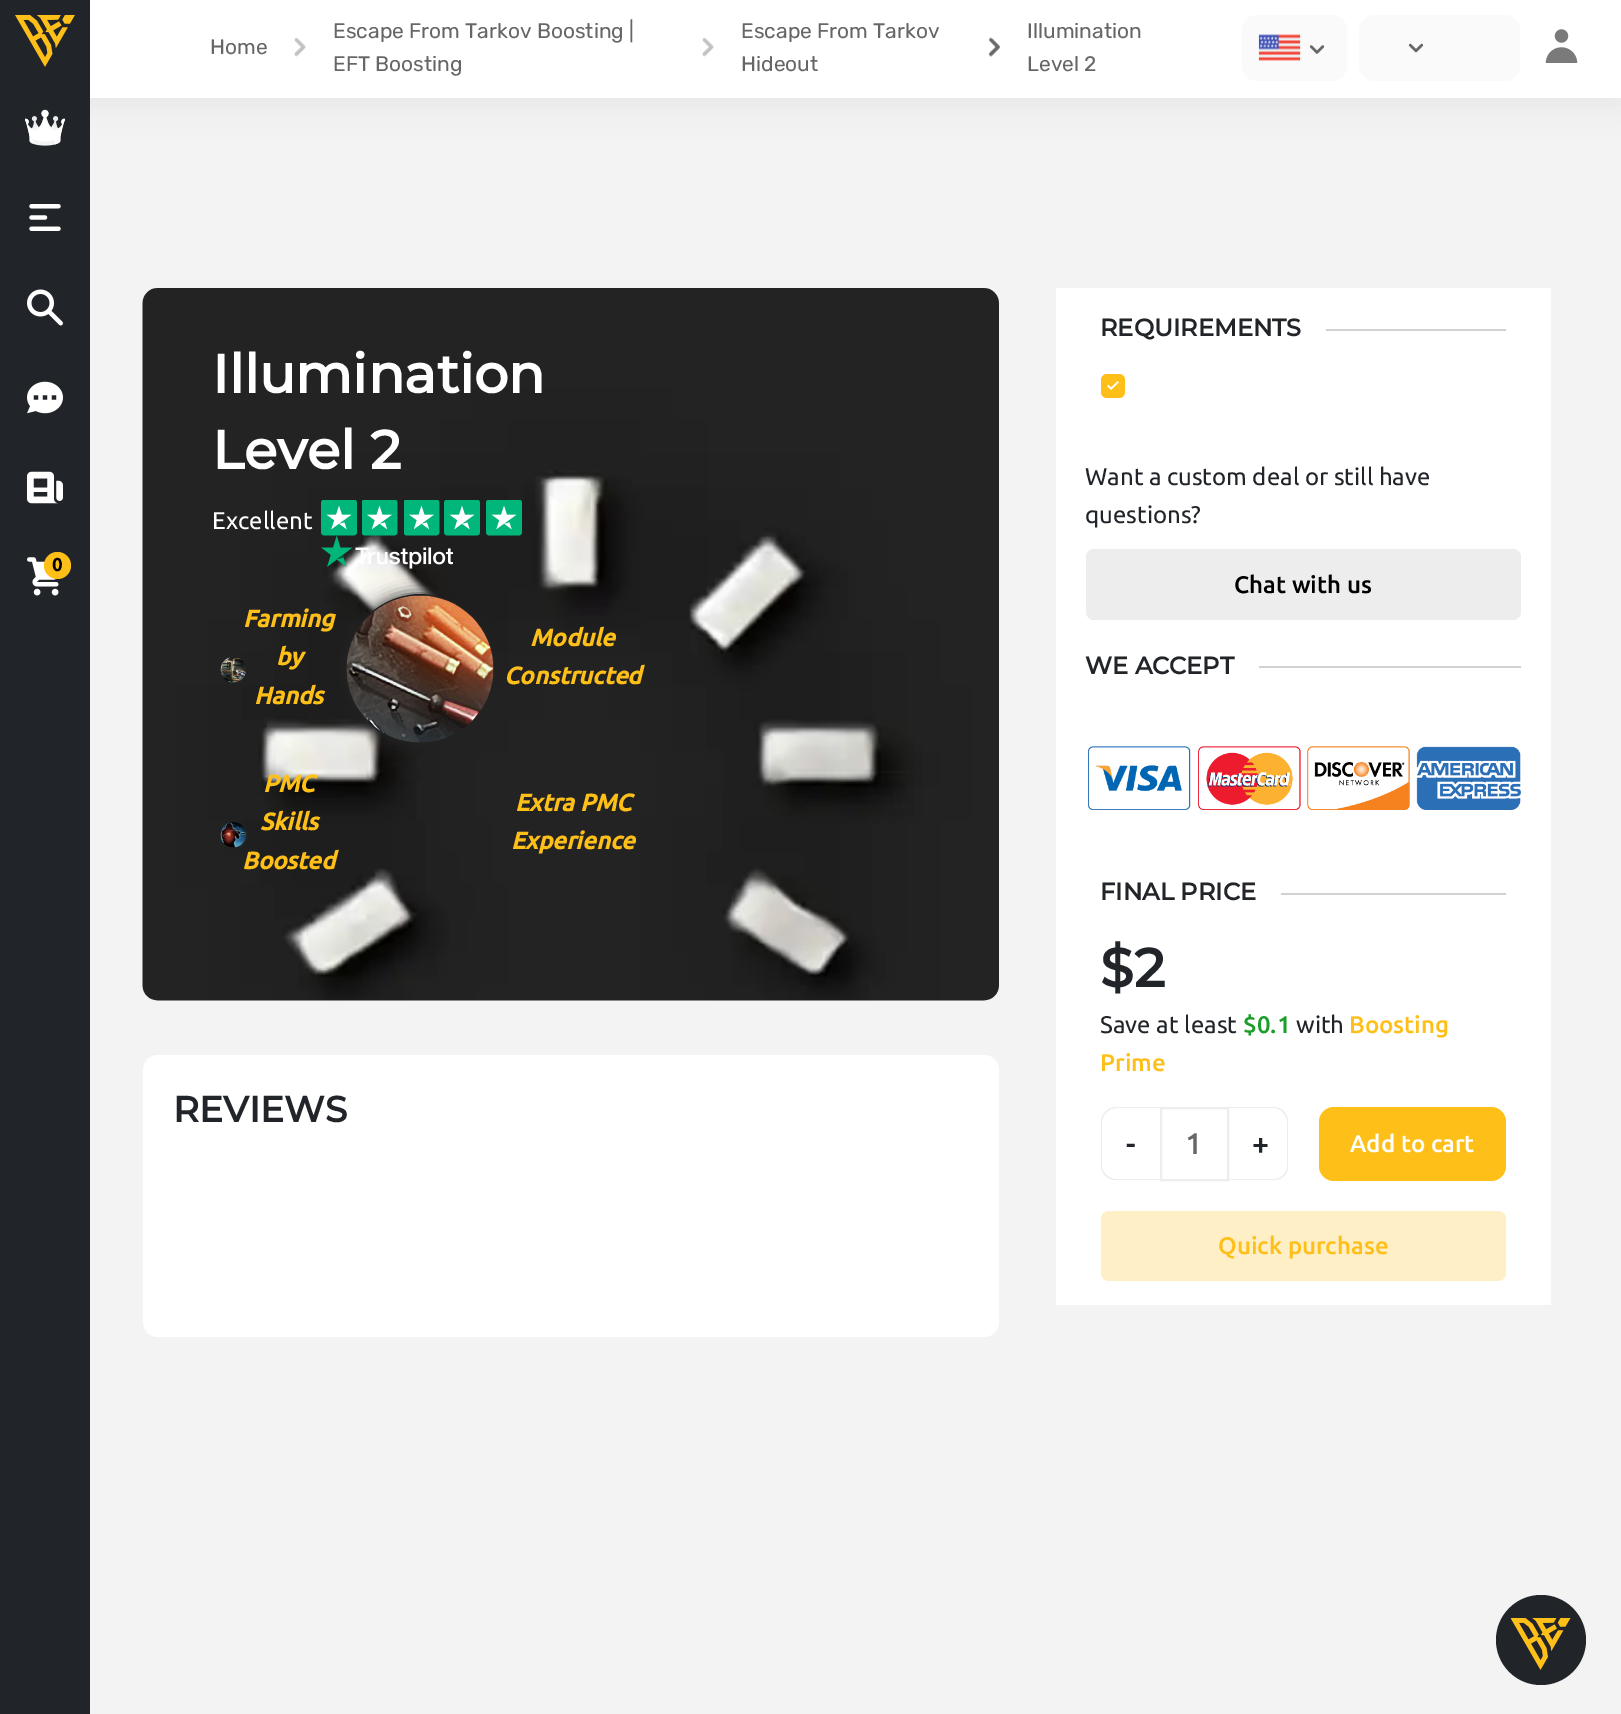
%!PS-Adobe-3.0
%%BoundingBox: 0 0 1621 1714
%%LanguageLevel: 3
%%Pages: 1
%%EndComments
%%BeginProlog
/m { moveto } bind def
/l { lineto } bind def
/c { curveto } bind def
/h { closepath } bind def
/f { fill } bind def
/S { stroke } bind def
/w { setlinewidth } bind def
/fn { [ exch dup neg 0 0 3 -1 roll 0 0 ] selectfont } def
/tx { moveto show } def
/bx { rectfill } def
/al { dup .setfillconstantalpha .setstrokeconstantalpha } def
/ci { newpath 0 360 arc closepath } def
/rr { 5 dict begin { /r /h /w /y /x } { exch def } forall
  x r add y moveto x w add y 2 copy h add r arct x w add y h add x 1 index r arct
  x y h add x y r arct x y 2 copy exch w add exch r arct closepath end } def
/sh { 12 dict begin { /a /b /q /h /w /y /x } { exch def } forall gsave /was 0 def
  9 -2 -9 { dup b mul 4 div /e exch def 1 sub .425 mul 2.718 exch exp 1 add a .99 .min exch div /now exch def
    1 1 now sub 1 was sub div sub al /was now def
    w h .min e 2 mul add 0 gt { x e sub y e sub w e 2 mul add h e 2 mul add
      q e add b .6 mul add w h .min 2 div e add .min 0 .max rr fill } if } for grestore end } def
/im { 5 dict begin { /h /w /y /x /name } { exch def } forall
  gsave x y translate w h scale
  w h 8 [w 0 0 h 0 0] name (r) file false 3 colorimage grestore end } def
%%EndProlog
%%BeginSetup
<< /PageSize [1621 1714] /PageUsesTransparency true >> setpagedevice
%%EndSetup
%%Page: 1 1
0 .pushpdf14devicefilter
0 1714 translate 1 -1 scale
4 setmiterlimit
0.953 setgray
0 0 1621 1714 bx
0 setgray
0 6 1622 98 0 18 0.05 sh
1 setgray
90 0 1531 98 bx
/Rubik-Regular 21 fn
0.4 setgray
(Home) 210 54 tx
(image0.raw) 294 37 12 20 im
(Escape From Tarkov Boosting |) 333 38 tx
(image0.raw) 702 37 12 20 im
(EFT Boosting) 333 71 tx
(Escape From Tarkov) 741 38 tx
(image1.raw) 989 37 11 20 im
(Hideout) 741 71 tx
(Illumination) 1027 38 tx
(Level 2) 1027 71 tx
0.98 setgray
1242 15 105 66 15 rr f
(image2.raw) 1258 34 43 27 im
(image3.raw) 1309 45 16 9 im
1359 15 161 66 15 rr f
(image4.raw) 1408 43 16 10 im
(image5.raw) 1545 29 33 34 im
0.129 0.145 0.161 setrgbcolor
0 0 90 1714 bx
(image6.raw) 15 15 60 52 im
(image7.raw) 25 109 40 37 im
(image8.raw) 29 204 32 27 im
(image9.raw) 27 289 36 37 im
(image10.raw) 27 381 36 33 im
(image11.raw) 27 471 36 33 im
(image12.raw) 27 557 32 39 im
1 0.749 0.098 setrgbcolor
57.5 565.5 13.5 ci f
/Ubuntu-Bold 18 fn
0 setgray
(0) 52 571 tx
(image13.raw) 142 288 857 713 im
/Montserrat-Bold 54 fn
1 setgray
(Illumination) 212 393 tx
(Level 2) 212 469 tx
/Ubuntu-Regular 24 fn
(Excellent) 212 529 tx
(image14.raw) 321 500 36 36 im
(image15.raw) 362 500 36 36 im
(image16.raw) 404 500 36 36 im
(image17.raw) 444 500 36 36 im
(image18.raw) 486 500 36 36 im
(image19.raw) 321 536 132 33 im
(image20.raw) 220 657 26 26 im
0.133 setgray
345 594 150 150 75 7.5 1 sh
/Ubuntu-BoldItalic 24 fn
1 0.749 0.098 setrgbcolor
(Farming) 243 627 tx
(by) 276 665 tx
(Hands) 254 704 tx
0.133 setgray
2 w
420 669 74 ci S
(image21.raw) 346 595 148 148 im
1 0.749 0.098 setrgbcolor
(Module) 530 646 tx
(Constructed) 504 684 tx
0.133 setgray
220 822 27 26 13 rr S
(image22.raw) 220 822 26 26 im
1 0.749 0.098 setrgbcolor
(PMC) 263 792 tx
(Skills) 260 830 tx
(Boosted) 242 869 tx
(Extra PMC) 515 811 tx
(Experience) 511 849 tx
1 setgray
143 1055 856 282 15 rr f
/Montserrat-Bold 36 fn
0.129 0.145 0.161 setrgbcolor
(REVIEWS) 173 1122 tx
1 setgray
1056 288 495 1017 bx
/Montserrat-Bold 24 fn
0.129 0.145 0.161 setrgbcolor
(REQUIREMENTS) 1100 336 tx
0.82 setgray
1326 329 180 2 bx
1 0.749 0.098 setrgbcolor
1101 374 24 24 6 rr f
(image23.raw) 1107 381 12 9 im
/Ubuntu-Regular 24 fn
0.129 0.145 0.161 setrgbcolor
(Want a custom deal or still have) 1085 485 tx
(questions?) 1085 523 tx
0.929 setgray
1086 549 435 71 8 rr f
/Ubuntu-Medium 24 fn
0 setgray
(Chat with us) 1234 593 tx
/Montserrat-Bold 24 fn
0.129 0.145 0.161 setrgbcolor
(WE ACCEPT) 1085 674 tx
0.82 setgray
1259 666 262 2 bx
(image24.raw) 1088 746 433 64 im
0.129 0.145 0.161 setrgbcolor
(FINAL PRICE) 1100 900 tx
0.82 setgray
1281 893 225 2 bx
/Montserrat-Bold 54 fn
0.129 0.145 0.161 setrgbcolor
($2) 1100 987 tx
/Ubuntu-Regular 24 fn
(Save at least) 1100 1033 tx
/Ubuntu-Medium 24 fn
0.11 0.624 0.165 setrgbcolor
($0.1) 1243 1033 tx
/Ubuntu-Regular 24 fn
0.129 0.145 0.161 setrgbcolor
(with) 1296 1033 tx
/Ubuntu-Medium 24 fn
1 0.749 0.098 setrgbcolor
(Boosting) 1349 1033 tx
(Prime) 1100 1071 tx
0.929 setgray
1116 1107 m 1160 1107 l 1160 1180 l 1116 1180 l 1108 1180 1101 1174 1101 1166 c 1101 1122 l 1101 1114 1108 1107 1116 1107 c h 1116 1108 m 1160 1108 l 1160 1179 l 1116 1179 l 1109 1179 1102 1173 1102 1166 c 1102 1122 l 1102 1115 1109 1108 1116 1108 c h eofill
/Ubuntu-Medium 30 fn
0.129 0.145 0.161 setrgbcolor
(-) 1126 1154 tx
0.929 setgray
1161 1108 67 72 rectstroke
0.4 setgray
(1) 1185 1154 tx
0.929 setgray
1228 1107 m 1274 1107 l 1282 1107 1288 1114 1288 1122 c 1288 1166 l 1288 1174 1282 1180 1274 1180 c 1228 1180 l h 1228 1108 m 1274 1108 l 1281 1108 1287 1115 1287 1122 c 1287 1166 l 1287 1173 1281 1179 1274 1179 c 1228 1179 l h eofill
0.129 0.145 0.161 setrgbcolor
(+) 1252 1154 tx
1 0.749 0.098 setrgbcolor
1319 1107 187 74 15 rr f
/Ubuntu-Medium 24 fn
1 setgray
(Add to cart) 1350 1152 tx
1 0.937 0.776 setrgbcolor
1101 1211 405 70 8 rr f
1 0.749 0.098 setrgbcolor
(Quick purchase) 1218 1254 tx
0.129 0.145 0.161 setrgbcolor
1541 1640 45 ci f
(image25.raw) 1511 1618 60 52 im
.poppdf14devicefilter showpage
%%EOF
